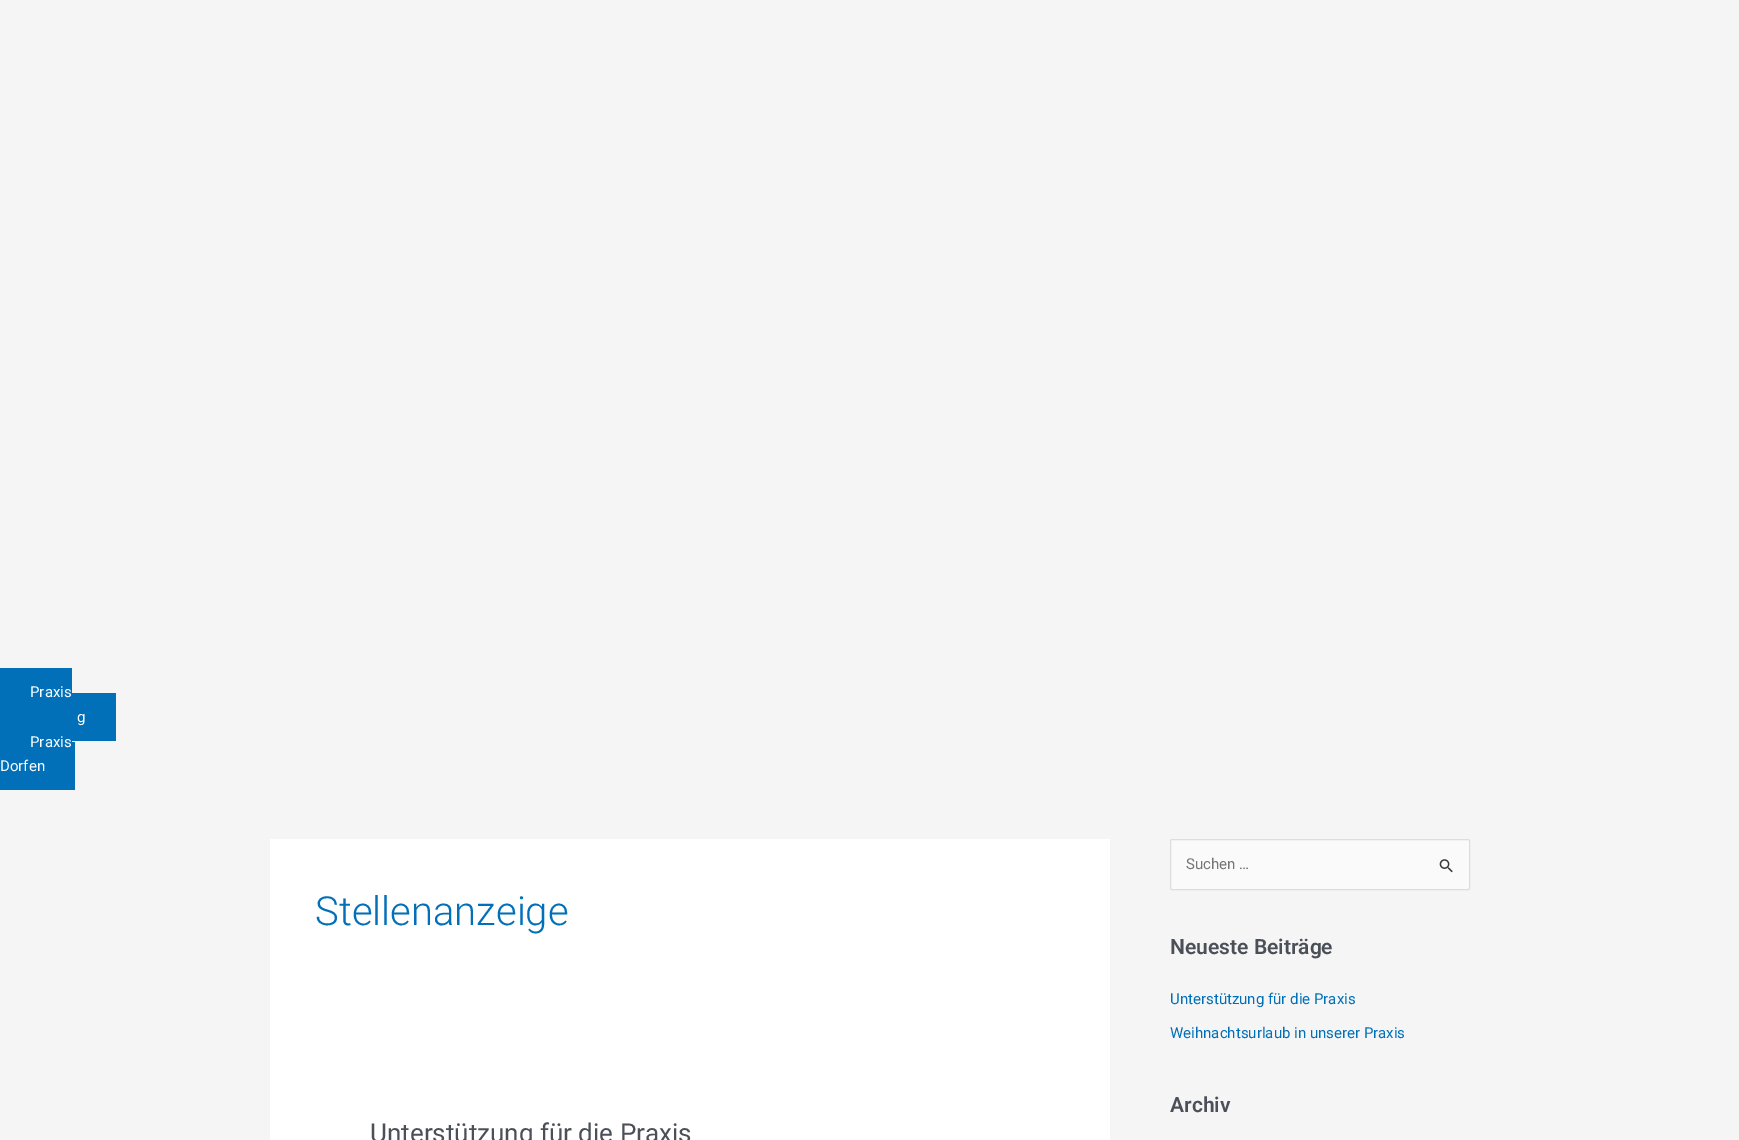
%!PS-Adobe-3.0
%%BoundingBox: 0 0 1739 1140
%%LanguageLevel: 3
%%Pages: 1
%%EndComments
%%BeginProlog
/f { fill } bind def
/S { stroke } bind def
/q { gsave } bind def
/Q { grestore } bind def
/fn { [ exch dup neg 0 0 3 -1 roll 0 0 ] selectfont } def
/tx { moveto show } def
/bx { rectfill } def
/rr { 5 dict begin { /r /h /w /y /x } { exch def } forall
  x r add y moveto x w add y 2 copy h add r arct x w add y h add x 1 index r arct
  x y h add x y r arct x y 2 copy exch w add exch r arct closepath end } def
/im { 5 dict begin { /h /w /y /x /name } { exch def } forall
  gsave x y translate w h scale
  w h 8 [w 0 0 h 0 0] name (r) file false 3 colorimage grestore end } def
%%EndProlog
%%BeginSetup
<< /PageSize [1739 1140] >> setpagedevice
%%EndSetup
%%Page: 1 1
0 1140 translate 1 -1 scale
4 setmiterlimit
0.961 setgray
0 0 1739 1140 bx
0.004 0.439 0.725 setrgbcolor
0 668 72 25 bx
0 693 116 48 bx
/Roboto-Regular 15 fn
1 setgray
(Praxis) 30 697 tx
(g) 77 722 tx
0.004 0.439 0.725 setrgbcolor
0 741 72 1 bx
0 742 75 48 bx
1 setgray
(Praxis) 30 747 tx
(Dorfen) 0 771 tx
270 839 840 301 bx
/Roboto-Light 40 fn
0.004 0.439 0.725 setrgbcolor
(Stellenanzeige) 315 925 tx
/Roboto-Regular 26 fn
0.294 0.31 0.345 setrgbcolor
(Unterstützung für die Praxis) 370 1142 tx
0.98 setgray
1170.5 839.5 299 50 1.5 rr q f Q
0.867 setgray
S
/Roboto-Regular 15 fn
0.459 setgray
(Suchen …) 1186 869 tx
(image0.raw) 1439 859 14 14 im
/Roboto-SemiBold 21 fn
0.294 0.31 0.345 setrgbcolor
(Neueste Beiträge) 1170 954 tx
/Roboto-Regular 15 fn
0.004 0.439 0.725 setrgbcolor
(Unterstützung für die Praxis) 1170 1004 tx
(Weihnachtsurlaub in unserer Praxis) 1170 1038 tx
/Roboto-SemiBold 21 fn
0.294 0.31 0.345 setrgbcolor
(Archiv) 1170 1112 tx
showpage
%%EOF
